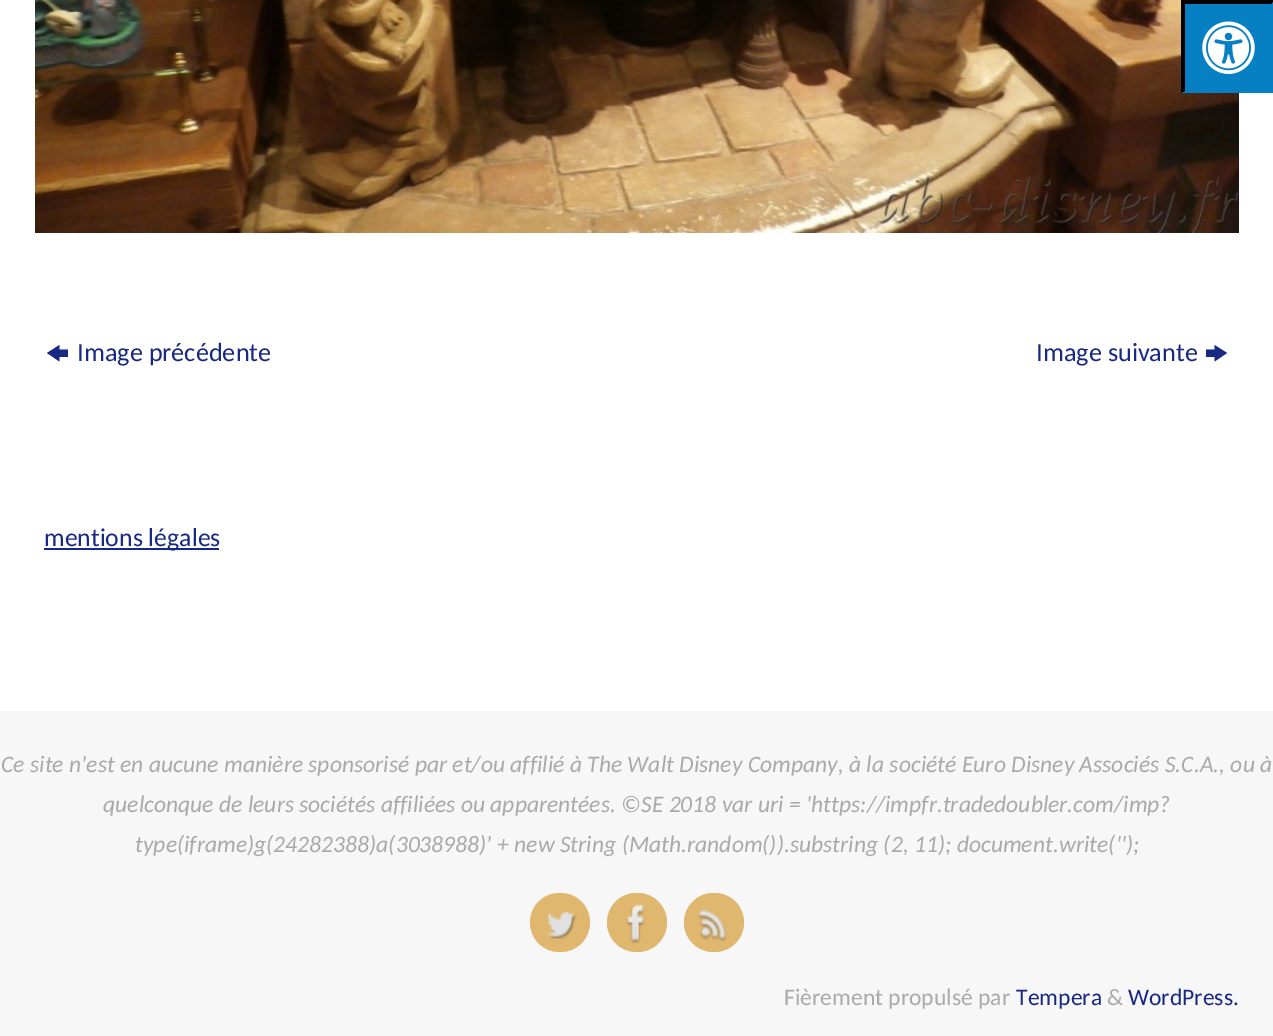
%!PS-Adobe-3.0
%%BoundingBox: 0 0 1273 1036
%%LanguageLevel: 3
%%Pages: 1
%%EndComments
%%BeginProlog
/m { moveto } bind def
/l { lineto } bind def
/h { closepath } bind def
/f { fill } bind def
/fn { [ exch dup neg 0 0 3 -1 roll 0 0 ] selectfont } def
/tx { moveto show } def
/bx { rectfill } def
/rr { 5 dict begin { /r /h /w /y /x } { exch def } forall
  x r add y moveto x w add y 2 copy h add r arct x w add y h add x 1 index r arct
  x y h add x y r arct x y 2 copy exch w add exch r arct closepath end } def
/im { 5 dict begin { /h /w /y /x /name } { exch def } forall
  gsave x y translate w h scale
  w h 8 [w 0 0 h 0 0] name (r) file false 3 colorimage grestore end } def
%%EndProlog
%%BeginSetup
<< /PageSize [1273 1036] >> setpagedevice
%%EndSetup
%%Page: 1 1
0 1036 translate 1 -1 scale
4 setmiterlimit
1 setgray
0 0 1273 1036 bx
(image1.raw) 35 0 1204 233 im
0.027 0.502 0.765 setrgbcolor
1181 0 92 93 bx
0 setgray
1181 0 m 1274 0 l 1272 4 l 1185 4 l h f
0.027 0.502 0.765 setrgbcolor
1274 0 m 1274 93 l 1272 91 l 1272 4 l h f
0 setgray
1181 93 m 1181 0 l 1185 4 l 1185 91 l h f
(image0.raw) 1202 21 53 53 im
0.09 0.161 0.514 setrgbcolor
47 353 m 59.5 345 l 59.5 349.5 l 68 349.5 l 68 357 l 59.5 357 l 59.5 361.5 l h f
/Carlito-Regular 26.25 fn
(Image précédente) 77 361 tx
(Image suivante) 1036 361 tx
1206 357 m 1206 349.5 l 1214.5 349.5 l 1214.5 345 l 1227 353 l 1214.5 361.5 l 1214.5 357 l h f
44 548 175 2 bx
/Carlito-Regular 25.75 fn
(mentions légales) 44 546 tx
0.969 setgray
0 711 1273 325 bx
/Carlito-Italic 23.62 fn
0.667 setgray
(Ce site n'est en aucune manière sponsorisé par et/ou affilié à The Walt Disney Company, à la société Euro Disney Associés S.C.A., ou à) 1 772 tx
(quelconque de leurs sociétés affiliées ou apparentées. ©SE 2018 var uri = 'https://impfr.tradedoubler.com/imp?) 103 812 tx
(type\(iframe\)g\(24282388\)a\(3038988\)' + new String \(Math.random\(\)\).substring \(2, 11\); document.write\(''\);) 135 852 tx
0.878 0.718 0.435 setrgbcolor
530 893 60 59 29.5 rr f
(image2.raw) 547 911 30 28 im
607 893 60 59 29.5 rr f
(image3.raw) 626 904 19 40 im
684 893 60 59 29.5 rr f
(image4.raw) 698 909 29 33 im
/Carlito-Regular 23.62 fn
0.667 setgray
(Fièrement propulsé par) 784 1005 tx
0.09 0.161 0.514 setrgbcolor
(Tempera) 1016 1005 tx
0.667 setgray
(&) 1107 1005 tx
0.09 0.161 0.514 setrgbcolor
(WordPress.) 1128 1005 tx
showpage
%%EOF
